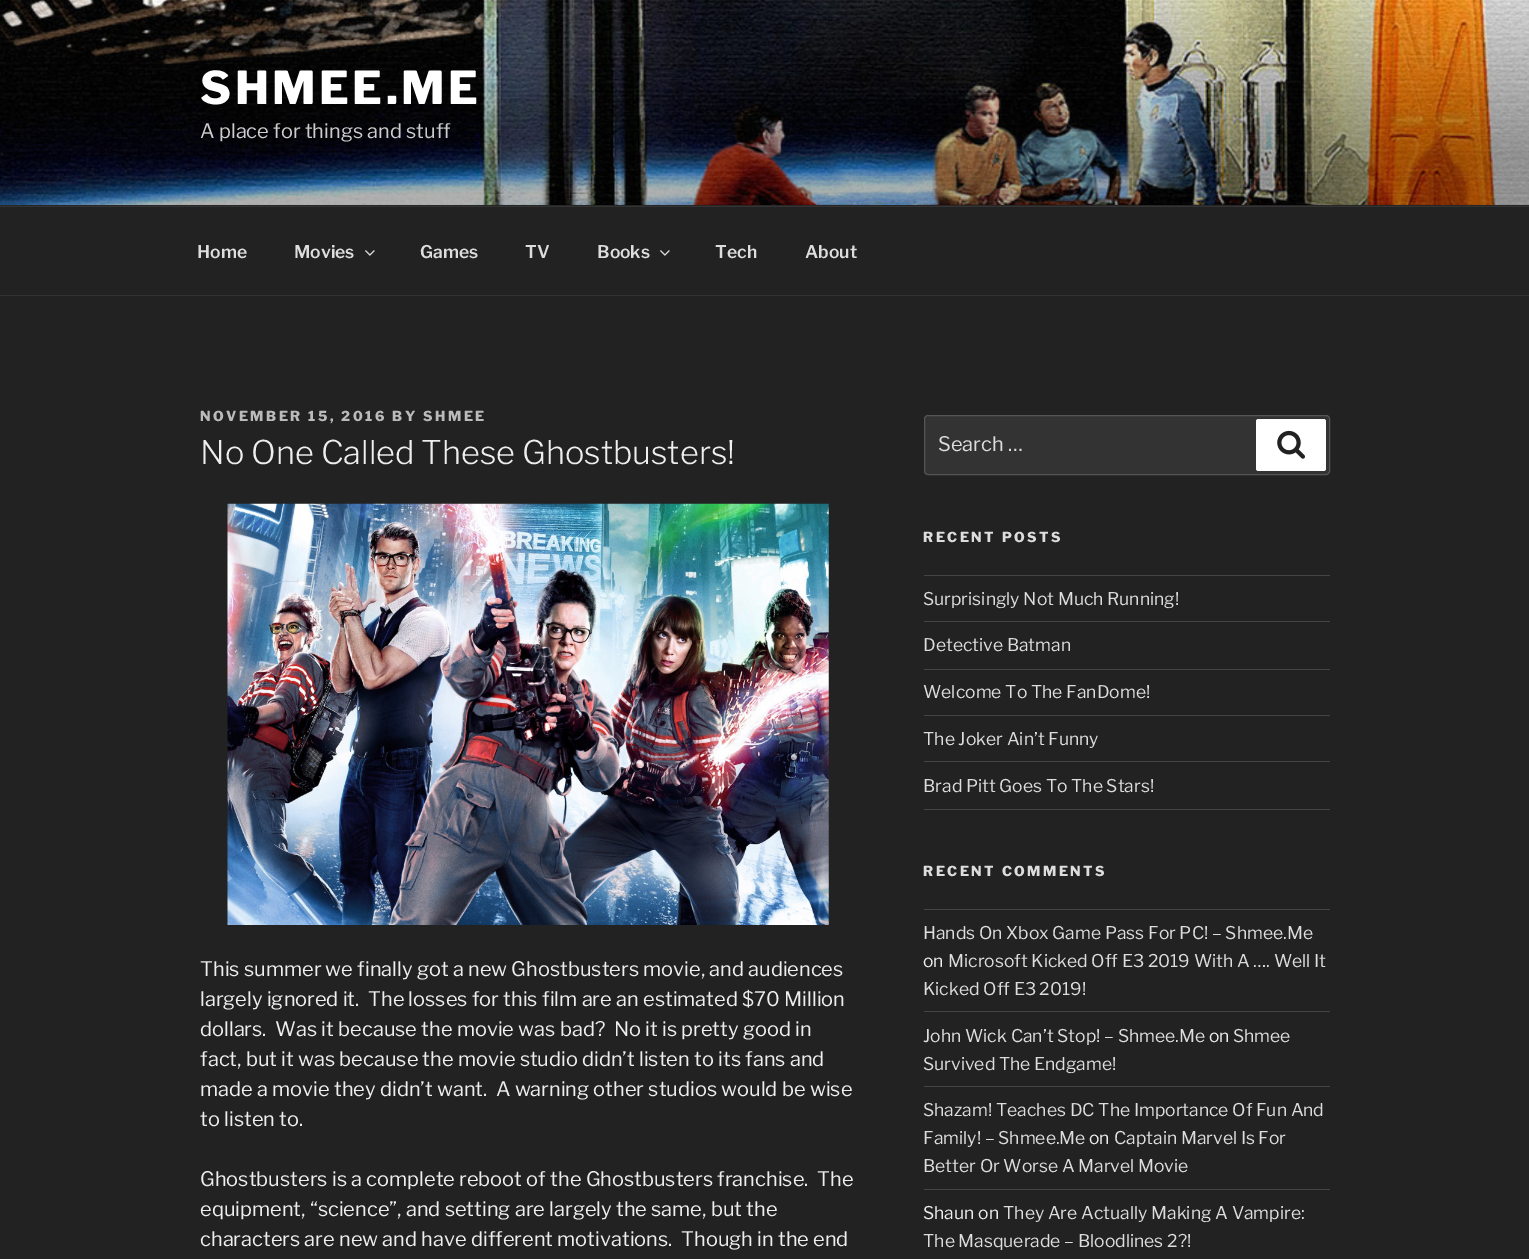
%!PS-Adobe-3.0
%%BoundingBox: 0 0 1529 1259
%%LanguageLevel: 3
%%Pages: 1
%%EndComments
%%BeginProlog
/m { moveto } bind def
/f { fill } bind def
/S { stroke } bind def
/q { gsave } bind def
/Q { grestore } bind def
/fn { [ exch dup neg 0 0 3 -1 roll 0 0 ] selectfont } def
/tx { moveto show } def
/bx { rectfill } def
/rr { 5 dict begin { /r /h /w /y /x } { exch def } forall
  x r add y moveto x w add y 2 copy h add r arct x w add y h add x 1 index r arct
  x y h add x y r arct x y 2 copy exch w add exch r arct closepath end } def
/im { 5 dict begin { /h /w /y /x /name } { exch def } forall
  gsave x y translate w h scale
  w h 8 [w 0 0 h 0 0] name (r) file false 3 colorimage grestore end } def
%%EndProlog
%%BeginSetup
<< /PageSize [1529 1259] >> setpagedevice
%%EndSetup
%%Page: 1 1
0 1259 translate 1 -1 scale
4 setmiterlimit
0.133 setgray
0 0 1529 1259 bx
0.149 setgray
0 205 1529 1 bx
(image0.raw) 0 0 1529 205 im
/LibreFranklin-Thin 45 fn
1 setgray
200 104 m 3.5 0 (SHMEE.ME) ashow
/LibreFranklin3-Thin 20 fn
0.804 0.804 0.808 setrgbcolor
(A place for things and stuff) 200 138 tx
0.2 setgray
0 206 1529 1 bx
0 295 1529 1 bx
/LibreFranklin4-Thin 17.5 fn
0.867 setgray
(Home) 197 258 tx
(Movies) 294 258 tx
(image1.raw) 365 250 10 6 im
(Games) 420 258 tx
(TV) 525 258 tx
(Books) 597 258 tx
(image1.raw) 660 250 10 6 im
(Tech) 715 258 tx
(About) 805 258 tx
/LibreFranklin-Thin 13.75 fn
0.733 setgray
200 421 m 2.5 0 (NOVEMBER 15, 2016 BY SHMEE) ashow
/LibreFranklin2-Thin 32.5 fn
0.933 setgray
(No One Called These Ghostbusters!) 200 464 tx
(image2.raw) 227 503 602 422 im
/LibreFranklin3-Thin 20 fn
(This summer we finally got a new Ghostbusters movie, and audiences) 200 976 tx
(largely ignored it.  The losses for this film are an estimated $70 Million) 200 1006 tx
(dollars.  Was it because the movie was bad?  No it is pretty good in) 200 1036 tx
(fact, but it was because the movie studio didn’t listen to its fans and) 200 1066 tx
(made a movie they didn’t want.  A warning other studios would be wise) 200 1096 tx
(to listen to.) 200 1126 tx
(Ghostbusters is a complete reboot of the Ghostbusters franchise.  The) 200 1186 tx
(equipment, “science”, and setting are largely the same, but the) 200 1216 tx
(characters are new and have different motivations.  Though in the end) 200 1246 tx
0.2 setgray
924.5 415.5 405 59 3.5 rr q f Q
0.333 setgray
S
0.867 setgray
(Search …) 938 451 tx
1 setgray
1256 419 70 52 2.5 rr f
(image3.raw) 1277 430 28 29 im
/LibreFranklin-Thin 13.75 fn
0.867 setgray
923 542 m 2.5 0 (RECENT POSTS) ashow
0.267 setgray
924 575 406 1 bx
924 621 406 1 bx
/LibreFranklin3-Thin 17.5 fn
0.867 setgray
(Surprisingly Not Much Running!) 923 605 tx
0.267 setgray
924 669 406 1 bx
0.867 setgray
(Detective Batman) 923 651 tx
0.267 setgray
924 715 406 1 bx
0.867 setgray
(Welcome To The FanDome!) 923 698 tx
0.267 setgray
924 761 406 1 bx
0.867 setgray
(The Joker Ain’t Funny) 923 745 tx
0.267 setgray
924 809 406 1 bx
0.867 setgray
(Brad Pitt Goes To The Stars!) 923 792 tx
/LibreFranklin-Thin 13.75 fn
923 876 m 2.5 0 (RECENT COMMENTS) ashow
0.267 setgray
924 909 406 1 bx
924 1011 406 1 bx
/LibreFranklin3-Thin 17.5 fn
0.867 setgray
(Hands On Xbox Game Pass For PC! – Shmee.Me) 923 939 tx
0.933 setgray
(on) 923 967 tx
0.867 setgray
(Microsoft Kicked Off E3 2019 With A …. Well It) 948 967 tx
(Kicked Off E3 2019!) 923 995 tx
0.267 setgray
924 1086 406 1 bx
0.867 setgray
(John Wick Can’t Stop! – Shmee.Me) 923 1042 tx
0.933 setgray
(on) 1209 1042 tx
0.867 setgray
(Shmee) 1233 1042 tx
(Survived The Endgame!) 923 1070 tx
0.267 setgray
924 1189 406 1 bx
0.867 setgray
(Shazam! Teaches DC The Importance Of Fun And) 923 1116 tx
(Family! – Shmee.Me) 923 1144 tx
0.933 setgray
(on) 1089 1144 tx
0.867 setgray
(Captain Marvel Is For) 1114 1144 tx
(Better Or Worse A Marvel Movie) 923 1172 tx
0.933 setgray
(Shaun on) 923 1219 tx
0.867 setgray
(They Are Actually Making A Vampire:) 1003 1219 tx
(The Masquerade – Bloodlines 2?!) 923 1247 tx
showpage
%%EOF
